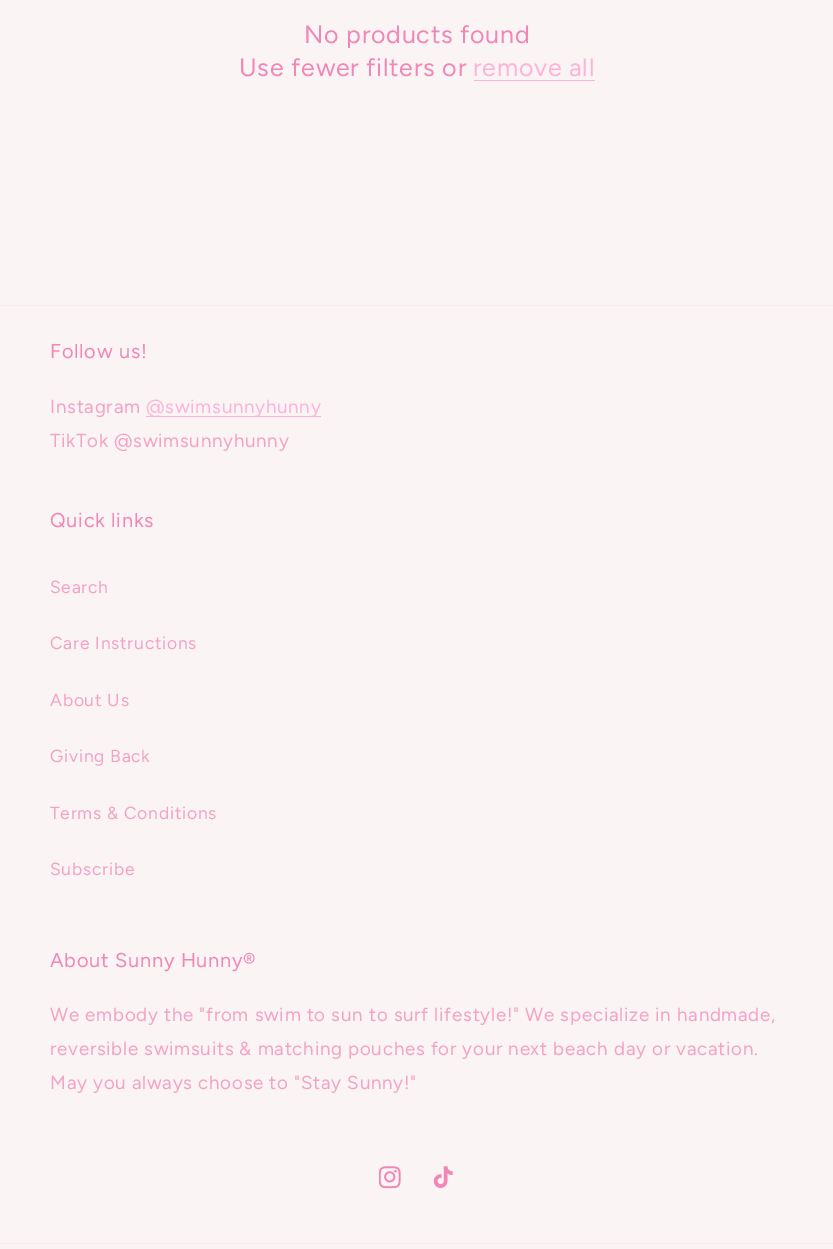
%!PS-Adobe-3.0
%%BoundingBox: 0 0 833 1249
%%LanguageLevel: 3
%%Pages: 1
%%EndComments
%%BeginProlog
/m { moveto } bind def
/fn { [ exch dup neg 0 0 3 -1 roll 0 0 ] selectfont } def
/bx { rectfill } def
/im { 5 dict begin { /h /w /y /x /name } { exch def } forall
  gsave x y translate w h scale
  w h 8 [w 0 0 h 0 0] name (r) file false 3 colorimage grestore end } def
%%EndProlog
%%BeginSetup
<< /PageSize [833 1249] >> setpagedevice
%%EndSetup
%%Page: 1 1
0 1249 translate 1 -1 scale
4 setmiterlimit
0.98 0.957 0.957 setrgbcolor
0 0 833 1249 bx
/Figtree-Regular 25 fn
0.949 0.525 0.714 setrgbcolor
304 43 m 0.75 0 (No products found) ashow
239 76 m 0.75 0 (Use fewer filters or) ashow
0.996 0.702 0.847 setrgbcolor
473 76 m 0.75 0 (remove all) ashow
474 80 121 1 bx
0.976 0.922 0.937 setrgbcolor
0 305 833 1 bx
/Figtree-Regular 20 fn
0.949 0.525 0.714 setrgbcolor
50 358 m 0.75 0 (Follow us!) ashow
/Figtree-Regular 18.75 fn
0.957 0.635 0.776 setrgbcolor
50 413 m 0.75 0 (Instagram) ashow
0.996 0.702 0.847 setrgbcolor
146 416 175 1 bx
146 413 m 0.75 0 (@swimsunnyhunny) ashow
0.957 0.635 0.776 setrgbcolor
50 447 m 0.75 0 (TikTok @swimsunnyhunny) ashow
/Figtree-Regular 20 fn
0.949 0.525 0.714 setrgbcolor
50 527 m 0.75 0 (Quick links) ashow
/Figtree-Regular 17.5 fn
0.957 0.635 0.776 setrgbcolor
50 593 m 0.75 0 (Search) ashow
50 649 m 0.75 0 (Care Instructions) ashow
50 706 m 0.75 0 (About Us) ashow
50 762 m 0.75 0 (Giving Back) ashow
50 819 m 0.75 0 (Terms & Conditions) ashow
50 875 m 0.75 0 (Subscribe) ashow
/Figtree-Regular 20 fn
0.949 0.525 0.714 setrgbcolor
50 967 m 0.75 0 (About Sunny Hunny®) ashow
/Figtree-Regular 18.75 fn
0.957 0.635 0.776 setrgbcolor
50 1021 m 0.75 0 (We embody the "from swim to sun to surf lifestyle!" We specialize in handmade,) ashow
50 1055 m 0.75 0 (reversible swimsuits & matching pouches for your next beach day or vacation.) ashow
50 1089 m 0.75 0 (May you always choose to "Stay Sunny!") ashow
(image0.raw) 379 1166 22 23 im
(image1.raw) 434 1166 19 22 im
0.976 0.922 0.937 setrgbcolor
0 1243 833 1 bx
showpage
%%EOF
